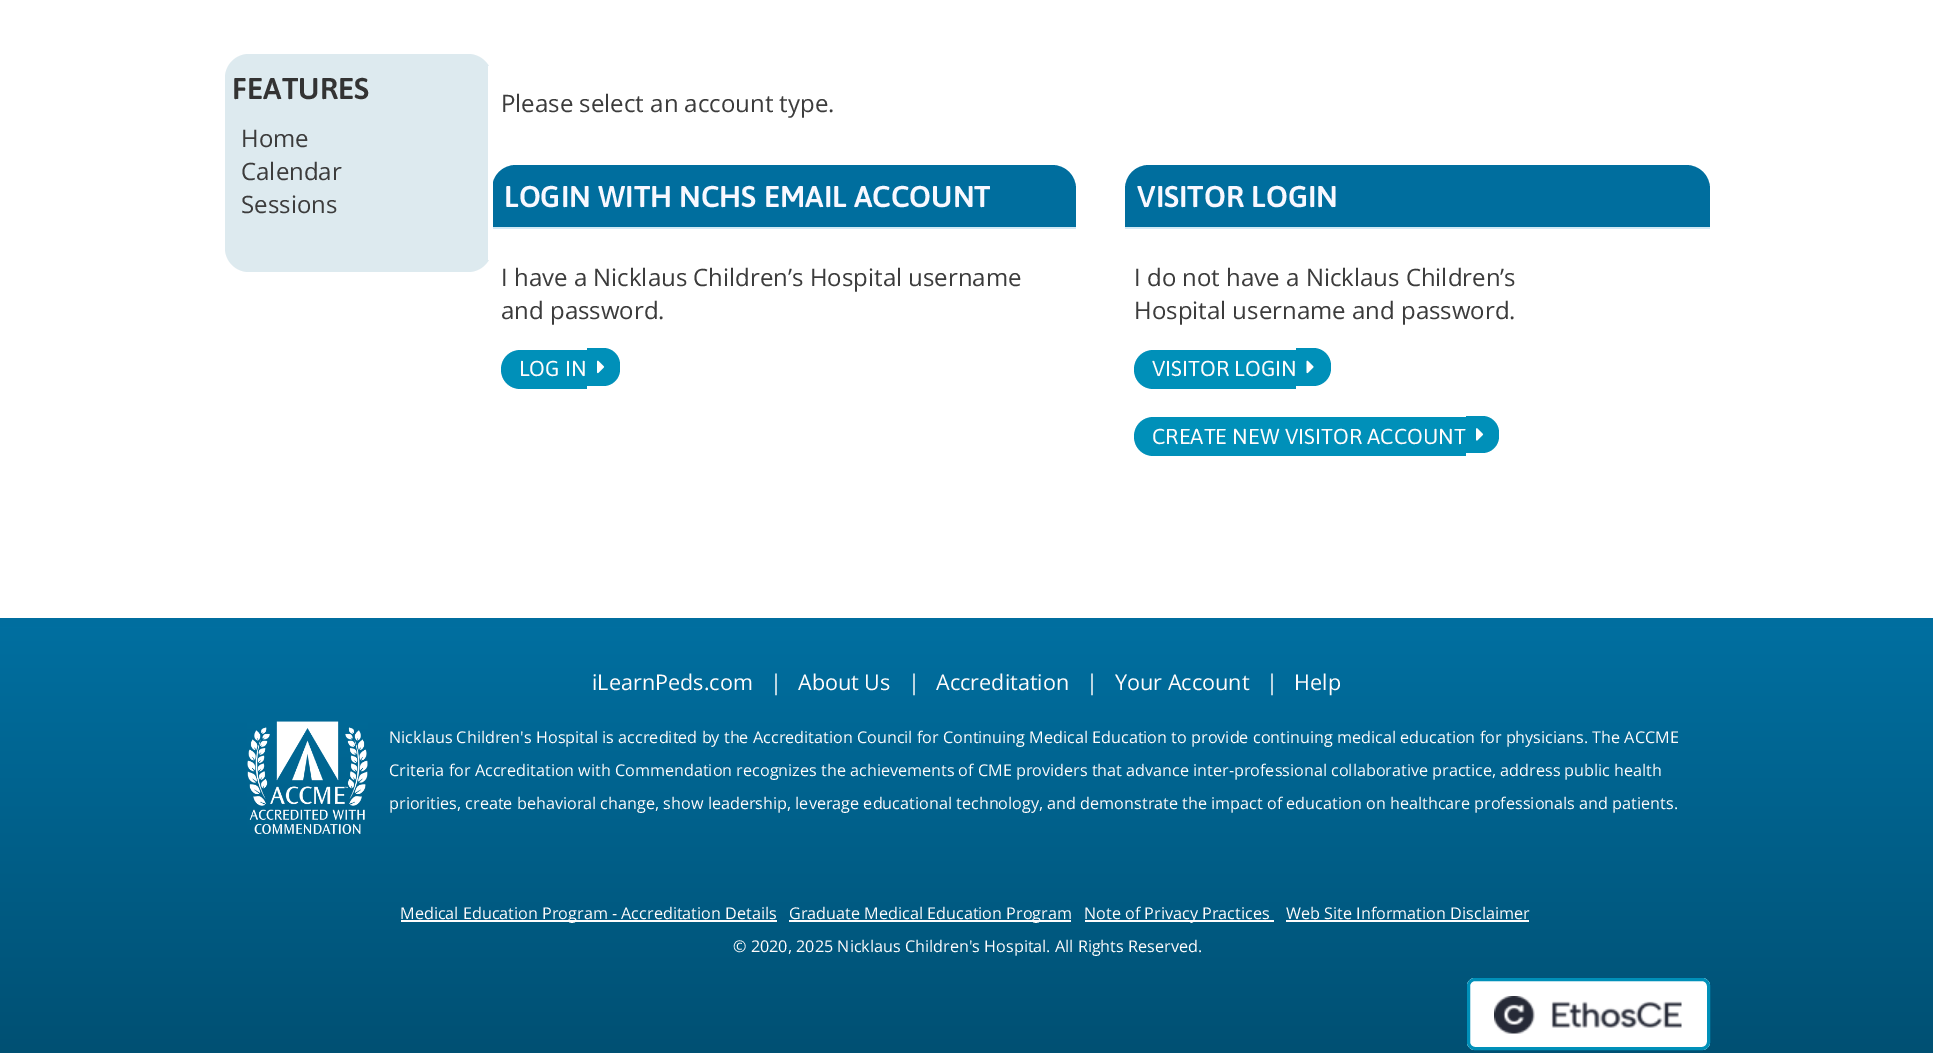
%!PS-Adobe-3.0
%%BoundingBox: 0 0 1933 1053
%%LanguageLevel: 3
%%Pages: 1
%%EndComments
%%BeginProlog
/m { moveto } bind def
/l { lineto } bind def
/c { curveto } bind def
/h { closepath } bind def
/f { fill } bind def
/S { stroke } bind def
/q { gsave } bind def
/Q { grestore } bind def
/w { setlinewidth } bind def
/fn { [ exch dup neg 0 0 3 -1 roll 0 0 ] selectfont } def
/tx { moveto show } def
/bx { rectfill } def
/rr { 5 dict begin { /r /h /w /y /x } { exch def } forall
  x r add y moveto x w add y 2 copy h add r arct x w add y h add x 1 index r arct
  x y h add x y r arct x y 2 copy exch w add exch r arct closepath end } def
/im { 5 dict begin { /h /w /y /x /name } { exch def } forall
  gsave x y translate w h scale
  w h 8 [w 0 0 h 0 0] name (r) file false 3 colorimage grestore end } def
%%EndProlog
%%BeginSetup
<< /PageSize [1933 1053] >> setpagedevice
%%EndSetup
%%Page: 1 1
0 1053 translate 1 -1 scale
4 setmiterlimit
1 setgray
0 0 1933 1053 bx
0.867 0.918 0.937 setrgbcolor
225 54 267 218 24 rr f
0 0.431 0.62 setrgbcolor
516 165 m 1052 165 l 1065.5 165 1076 175.5 1076 189 c 1076 228 l 492 228 l 492 189 l 492 175.5 502.5 165 516 165 c h f
0.824 0.914 0.961 setrgbcolor
492 227 584 2 bx
1 setgray
488 66 5 194 bx
/Asap-SemiBold 30 fn
0.2 setgray
(FEATURES) 232 99 tx
/OpenSans-Regular 24 fn
0.235 setgray
(Home) 241 147 tx
(Calendar) 241 180 tx
(Sessions) 241 213 tx
(Please select an account type.) 501 112 tx
/Asap-SemiBold 30 fn
0.973 0.973 1 setrgbcolor
(LOGIN WITH NCHS EMAIL ACCOUNT) 504 207 tx
/OpenSans-Regular 24 fn
0.235 setgray
(I have a Nicklaus Children’s Hospital username) 501 286 tx
(and password.) 501 319 tx
0 0.565 0.725 setrgbcolor
520.5 350 m 587 350 l 587 389 l 520.5 389 l 509.5 389 501 380.5 501 369.5 c 501 358.5 509.5 350 520.5 350 c h f
/Asap-Regular 21.6 fn
1 0.988 0.988 setrgbcolor
(LOG IN) 519 376 tx
0 0.565 0.725 setrgbcolor
587 348 m 603.5 348 l 612.5 348 620 355.5 620 364.5 c 620 369.5 l 620 378.5 612.5 386 603.5 386 c 587 386 l h f
(image0.raw) 597 360 8 14 im
0 0.431 0.62 setrgbcolor
1149 165 m 1686 165 l 1699.5 165 1710 175.5 1710 189 c 1710 228 l 1125 228 l 1125 189 l 1125 175.5 1135.5 165 1149 165 c h f
0.824 0.914 0.961 setrgbcolor
1125 227 585 2 bx
/Asap-SemiBold 30 fn
0.973 0.973 1 setrgbcolor
(VISITOR LOGIN) 1137 207 tx
/OpenSans-Regular 24 fn
0.235 setgray
(I do not have a Nicklaus Children’s) 1134 286 tx
(Hospital username and password.) 1134 319 tx
0 0.565 0.725 setrgbcolor
1153.5 350 m 1296 350 l 1296 389 l 1153.5 389 l 1142.5 389 1134 380.5 1134 369.5 c 1134 358.5 1142.5 350 1153.5 350 c h f
/Asap-Regular 21.6 fn
1 0.988 0.988 setrgbcolor
(VISITOR LOGIN) 1152 376 tx
0 0.565 0.725 setrgbcolor
1296 348 m 1313.5 348 l 1323 348 1331 356 1331 365.5 c 1331 368.5 l 1331 378 1323 386 1313.5 386 c 1296 386 l h f
(image1.raw) 1306 360 8 14 im
1153.5 417 m 1466 417 l 1466 456 l 1153.5 456 l 1142.5 456 1134 447.5 1134 436.5 c 1134 425.5 1142.5 417 1153.5 417 c h f
1 0.988 0.988 setrgbcolor
(CREATE NEW VISITOR ACCOUNT) 1152 444 tx
0 0.565 0.725 setrgbcolor
1466 416 m 1482.5 416 l 1491.5 416 1499 423.5 1499 432.5 c 1499 436.5 l 1499 445.5 1491.5 453 1482.5 453 c 1466 453 l h f
(image2.raw) 1476 428 8 13 im
q 0 627 m 1933 627 l 1933 1053 l 0 1053 l h clip newpath
<< /ShadingType 2 /ColorSpace /DeviceRGB /Coords [967 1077 967 627] /Extend [true true] /Function << /FunctionType 2 /Domain [0 1] /C0 [0 0.306 0.439] /C1 [0 0.435 0.627] /N 1 >> >> shfill Q
0 0.431 0.624 setrgbcolor
0 618 1933 9 bx
/OpenSans-Regular 21.6 fn
1 0.988 0.988 setrgbcolor
(iLearnPeds.com) 592 690 tx
(|) 770 690 tx
(About Us) 798 690 tx
(|) 908 690 tx
(Accreditation) 936 690 tx
(|) 1086 690 tx
(Your Account) 1115 690 tx
(|) 1266 690 tx
(Help) 1294 690 tx
(image3.raw) 247 721 121 113 im
/OpenSans-Regular 16.2 fn
(Nicklaus Children's Hospital is accredited by the Accreditation Council for Continuing Medical Education to provide continuing medical education for physicians. The ACCME) 389 743 tx
389 776 m -0.1 0 32 (Criteria for Accreditation with Commendation recognizes the achievements of CME providers that advance inter-professional collaborative practice, address public health) widthshow
(priorities, create behavioral change, show leadership, leverage educational technology, and demonstrate the impact of education on healthcare professionals and patients.) 389 809 tx
401 920 376 2 bx
(Medical Education Program - Accreditation Details) 400 919 tx
789 920 282 2 bx
(Graduate Medical Education Program) 789 919 tx
1085 920 189 2 bx
(Note of Privacy Practices) 1084 919 tx
(Web Site Information Disclaimer) 1286 919 tx
1286 920 243 2 bx
(© 2020, 2025 Nicklaus Children's Hospital. All Rights Reserved.) 733 952 tx
1 setgray
1467 978 243 72 8 rr f
(image4.raw) 1494 996 188 38 im
0 0.565 0.725 setrgbcolor
3 w
1468.5 979.5 240 69 6.5 rr S
showpage
%%EOF
